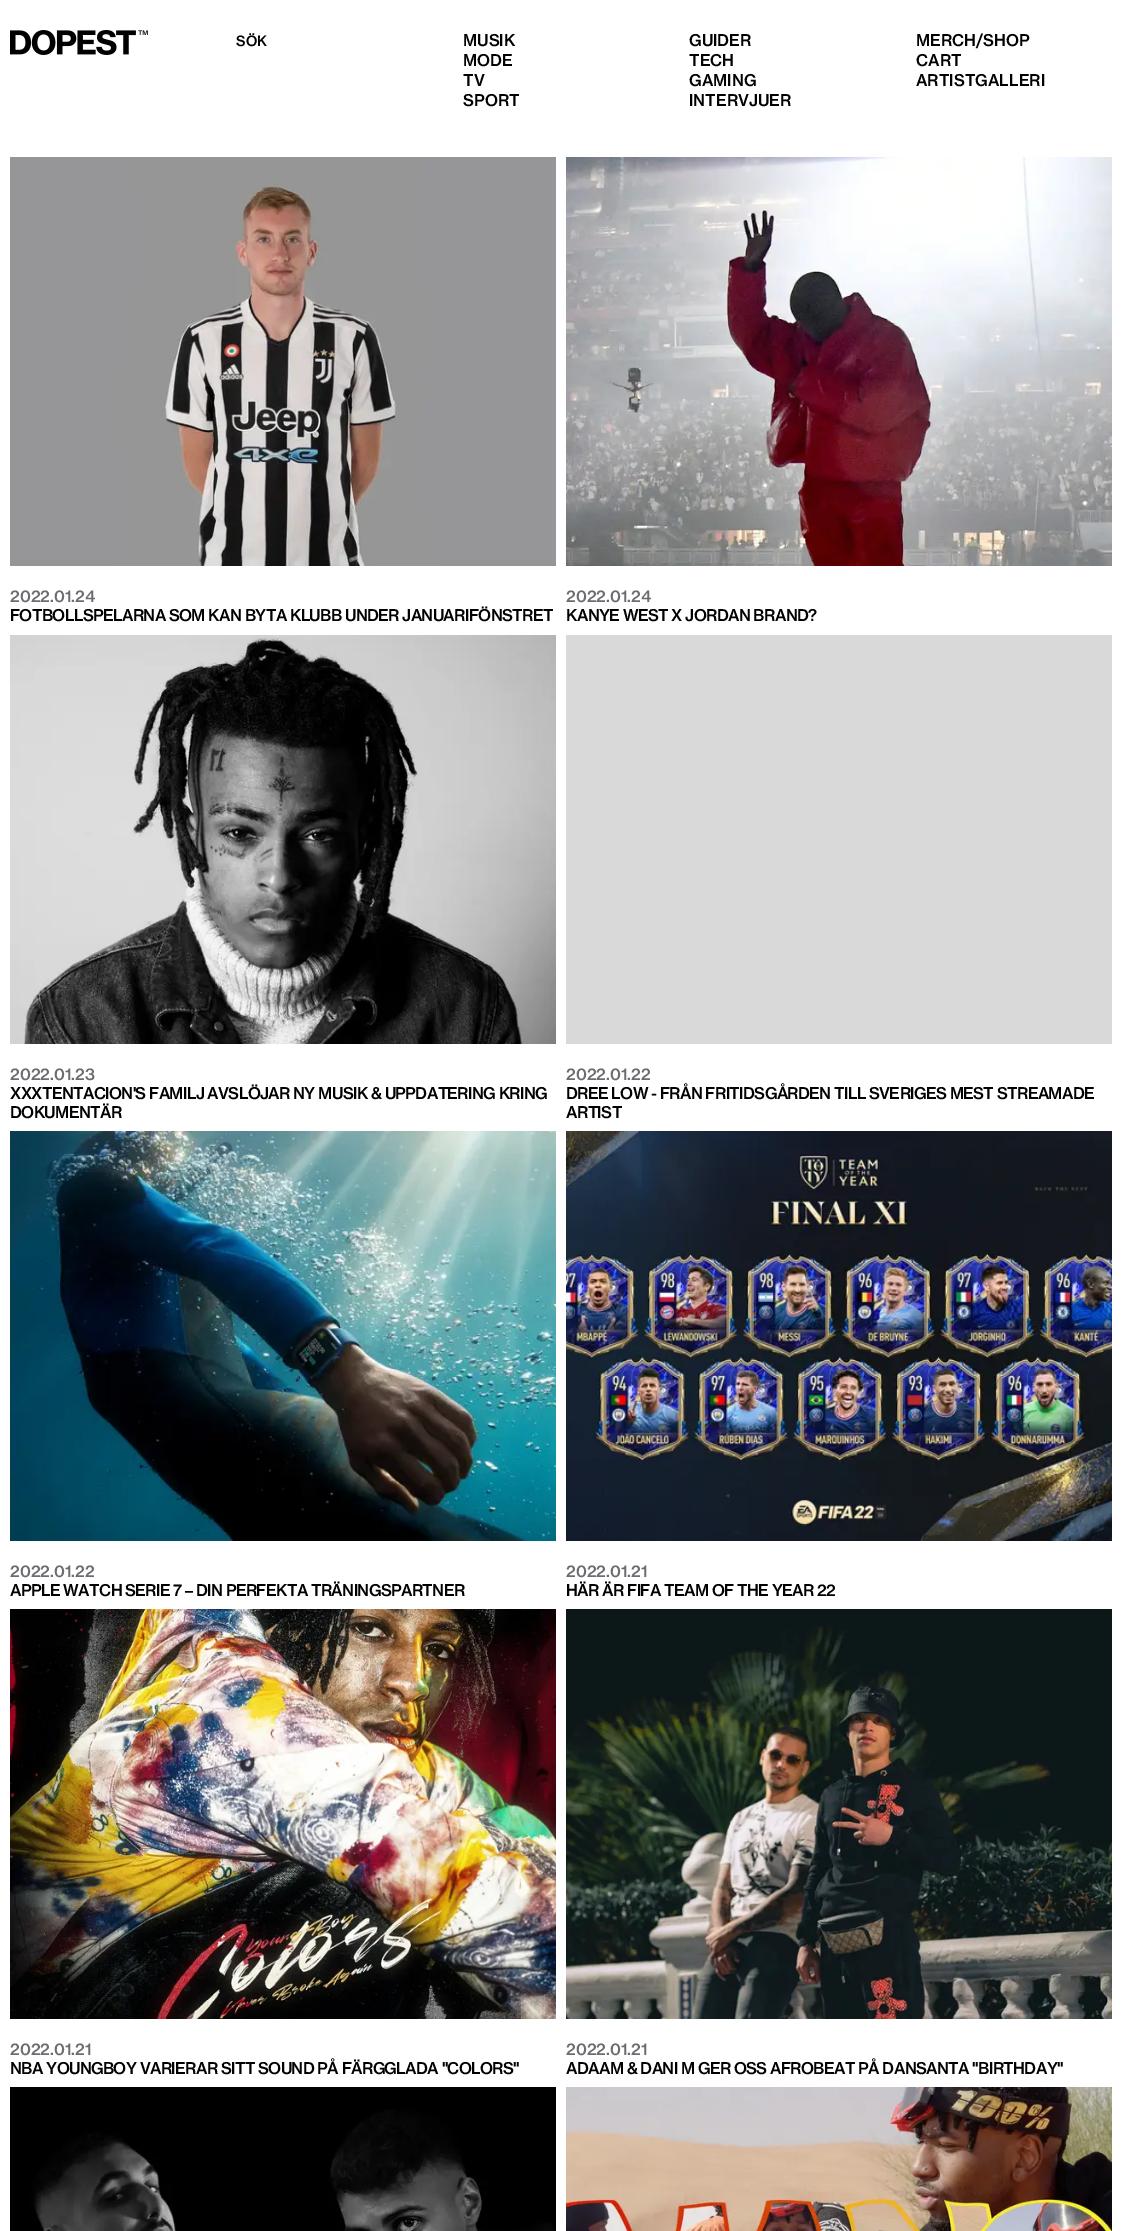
%!PS-Adobe-3.0
%%BoundingBox: 0 0 1122 2231
%%LanguageLevel: 3
%%Pages: 1
%%EndComments
%%BeginProlog
/m { moveto } bind def
/fn { [ exch dup neg 0 0 3 -1 roll 0 0 ] selectfont } def
/tx { moveto show } def
/bx { rectfill } def
/im { 5 dict begin { /h /w /y /x /name } { exch def } forall
  gsave x y translate w h scale
  w h 8 [w 0 0 h 0 0] name (r) file false 3 colorimage grestore end } def
%%EndProlog
%%BeginSetup
<< /PageSize [1122 2231] >> setpagedevice
%%EndSetup
%%Page: 1 1
0 2231 translate 1 -1 scale
4 setmiterlimit
1 setgray
0 0 1122 2231 bx
(image0.raw) 10 30 138 25 im
/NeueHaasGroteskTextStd-Medium 14 fn
0 setgray
(SÖK) 236 46 tx
/NeueHaasGroteskTextStd-Medium 16 fn
(MUSIK) 463 46 tx
(MODE) 463 66 tx
(TV) 463 86 tx
(SPORT) 463 106 tx
(GUIDER) 689 46 tx
(TECH) 689 66 tx
(GAMING) 689 86 tx
(INTERVJUER) 689 106 tx
(MERCH/SHOP) 916 46 tx
(CART) 916 66 tx
(ARTISTGALLERI) 916 86 tx
(image1.raw) 10 157 546 409 im
0.416 0.424 0.443 setrgbcolor
(2022.01.24) 10 602 tx
0 setgray
10 621 m -0.65 0 (FOTBOLLSPELARNA SOM KAN BYTA KLUBB UNDER JANUARIFÖNSTRET) ashow
(image2.raw) 566 157 546 409 im
0.416 0.424 0.443 setrgbcolor
(2022.01.24) 566 602 tx
0 setgray
566 621 m -0.65 0 (KANYE WEST X JORDAN BRAND?) ashow
(image3.raw) 10 635 546 409 im
0.416 0.424 0.443 setrgbcolor
(2022.01.23) 10 1080 tx
0 setgray
10 1099 m -0.65 0 (XXXTENTACION'S FAMILJ AVSLÖJAR NY MUSIK & UPPDATERING KRING) ashow
10 1118 m -0.65 0 (DOKUMENTÄR) ashow
0.851 setgray
566 635 546 409 bx
0.416 0.424 0.443 setrgbcolor
(2022.01.22) 566 1080 tx
0 setgray
566 1099 m -0.65 0 (DREE LOW - FRÅN FRITIDSGÅRDEN TILL SVERIGES MEST STREAMADE) ashow
566 1118 m -0.65 0 (ARTIST) ashow
(image4.raw) 10 1131 546 410 im
0.416 0.424 0.443 setrgbcolor
(2022.01.22) 10 1577 tx
0 setgray
10 1596 m -0.65 0 (APPLE WATCH SERIE 7 – DIN PERFEKTA TRÄNINGSPARTNER) ashow
(image5.raw) 566 1131 546 410 im
0.416 0.424 0.443 setrgbcolor
(2022.01.21) 566 1577 tx
0 setgray
566 1596 m -0.65 0 (HÄR ÄR FIFA TEAM OF THE YEAR 22) ashow
(image6.raw) 10 1609 546 410 im
0.416 0.424 0.443 setrgbcolor
(2022.01.21) 10 2055 tx
0 setgray
10 2074 m -0.65 0 (NBA YOUNGBOY VARIERAR SITT SOUND PÅ FÄRGGLADA "COLORS") ashow
(image7.raw) 566 1609 546 410 im
0.416 0.424 0.443 setrgbcolor
(2022.01.21) 566 2055 tx
0 setgray
566 2074 m -0.65 0 (ADAAM & DANI M GER OSS AFROBEAT PÅ DANSANTA "BIRTHDAY") ashow
(image8.raw) 10 2087 546 144 im
(image9.raw) 566 2087 546 144 im
showpage
%%EOF
